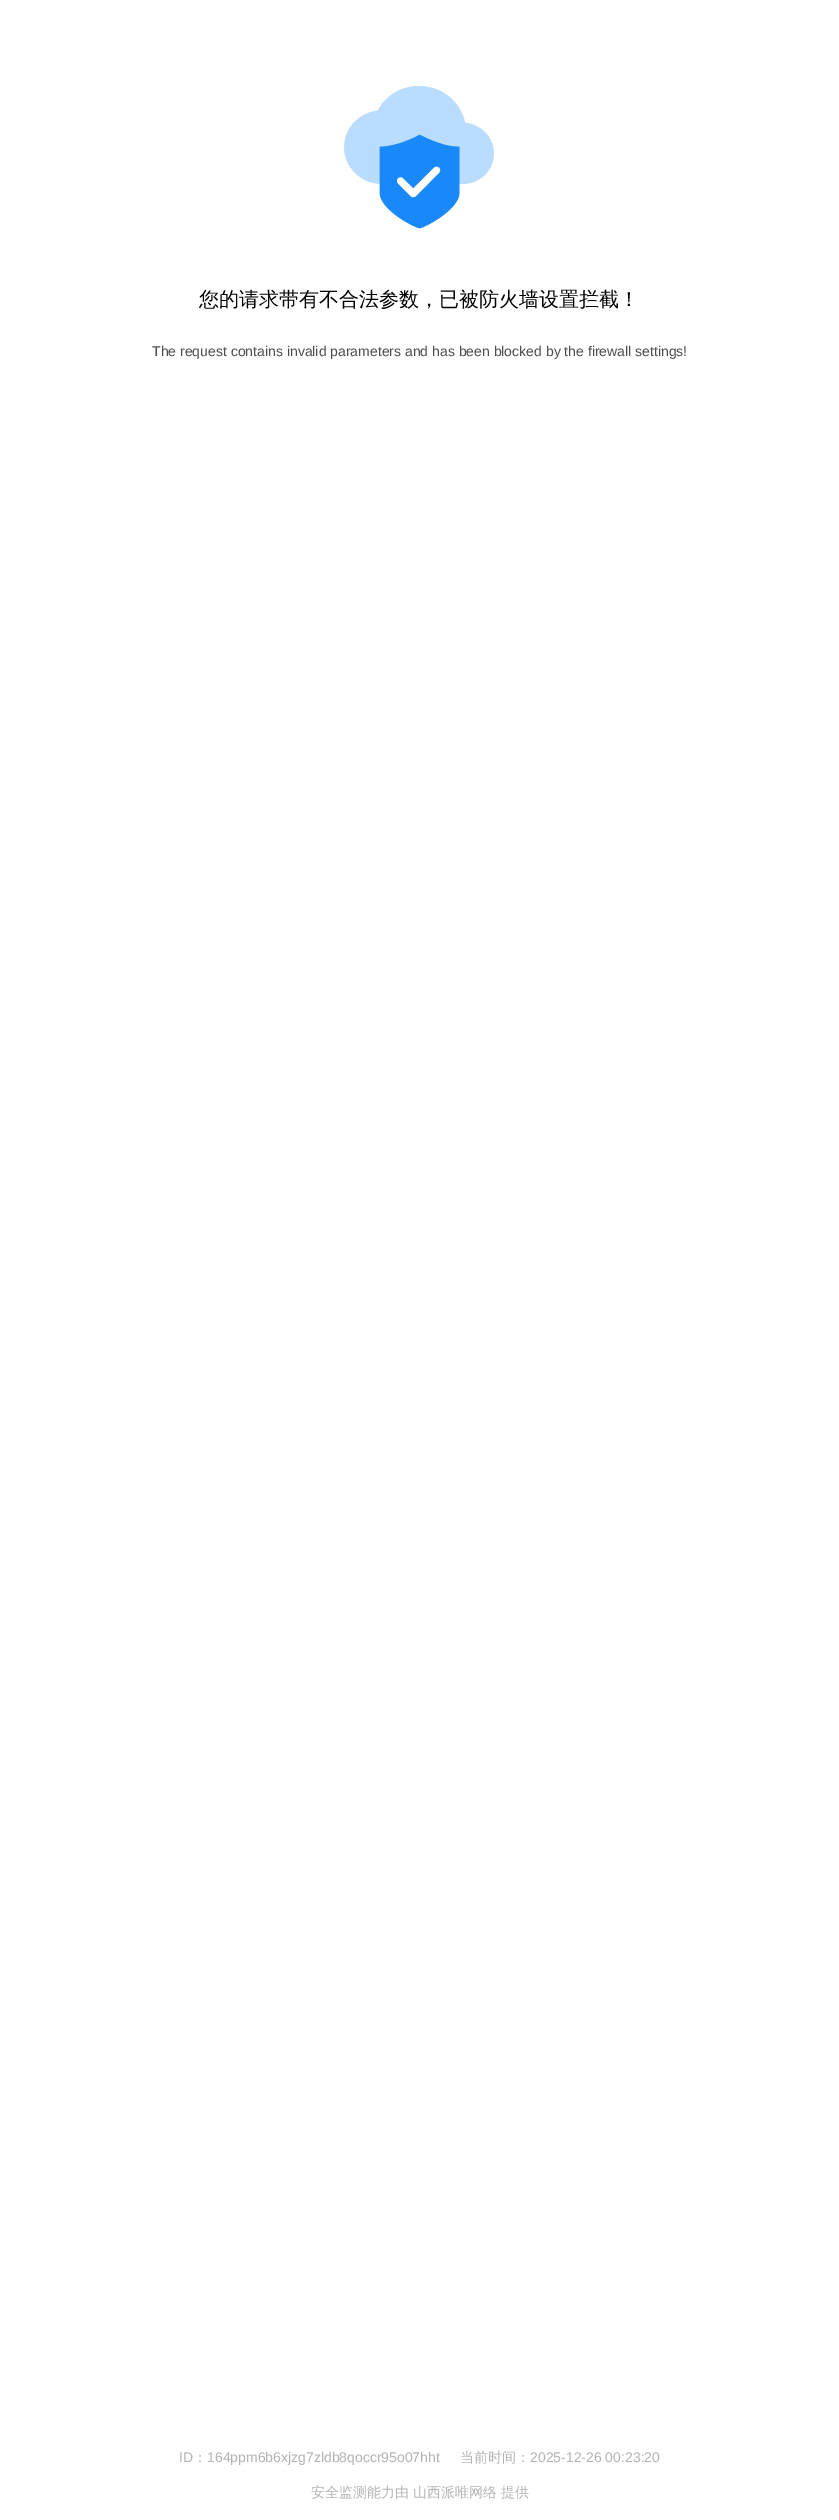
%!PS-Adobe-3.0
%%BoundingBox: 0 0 839 2520
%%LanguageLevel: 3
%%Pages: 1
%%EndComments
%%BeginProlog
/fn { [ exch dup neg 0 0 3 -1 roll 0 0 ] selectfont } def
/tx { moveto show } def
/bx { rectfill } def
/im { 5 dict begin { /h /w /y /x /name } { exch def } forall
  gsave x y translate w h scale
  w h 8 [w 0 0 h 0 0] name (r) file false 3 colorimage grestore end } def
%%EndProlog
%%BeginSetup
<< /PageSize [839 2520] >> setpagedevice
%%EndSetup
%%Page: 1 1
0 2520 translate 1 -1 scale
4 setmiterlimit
1 setgray
0 0 839 2520 bx
(image0.raw) 344 85 150 144 im
/WenQuanYiZenHei-Medium 20 fn
0 setgray
(您的请求带有不合法参数，已被防火墙设置拦截！) 199 306 tx
/LiberationSans-Regular 14 fn
0.302 setgray
(The request contains invalid parameters and has been blocked by the firewall settings!) 152 356 tx
0.702 setgray
(ID) 179 2462 tx
/WenQuanYiZenHei-Medium 14 fn
(：) 193 2462 tx
/LiberationSans-Regular 14 fn
(164ppm6b6xjzg7zldb8qoccr95o07hht) 207 2462 tx
/WenQuanYiZenHei-Medium 14 fn
(当前时间：) 460 2462 tx
/LiberationSans-Regular 14 fn
(2025-12-26 00:23:20) 530 2462 tx
/WenQuanYiZenHei-Medium 14 fn
(安全监测能力由 山西派唯网络 提供) 311 2497 tx
showpage
%%EOF
